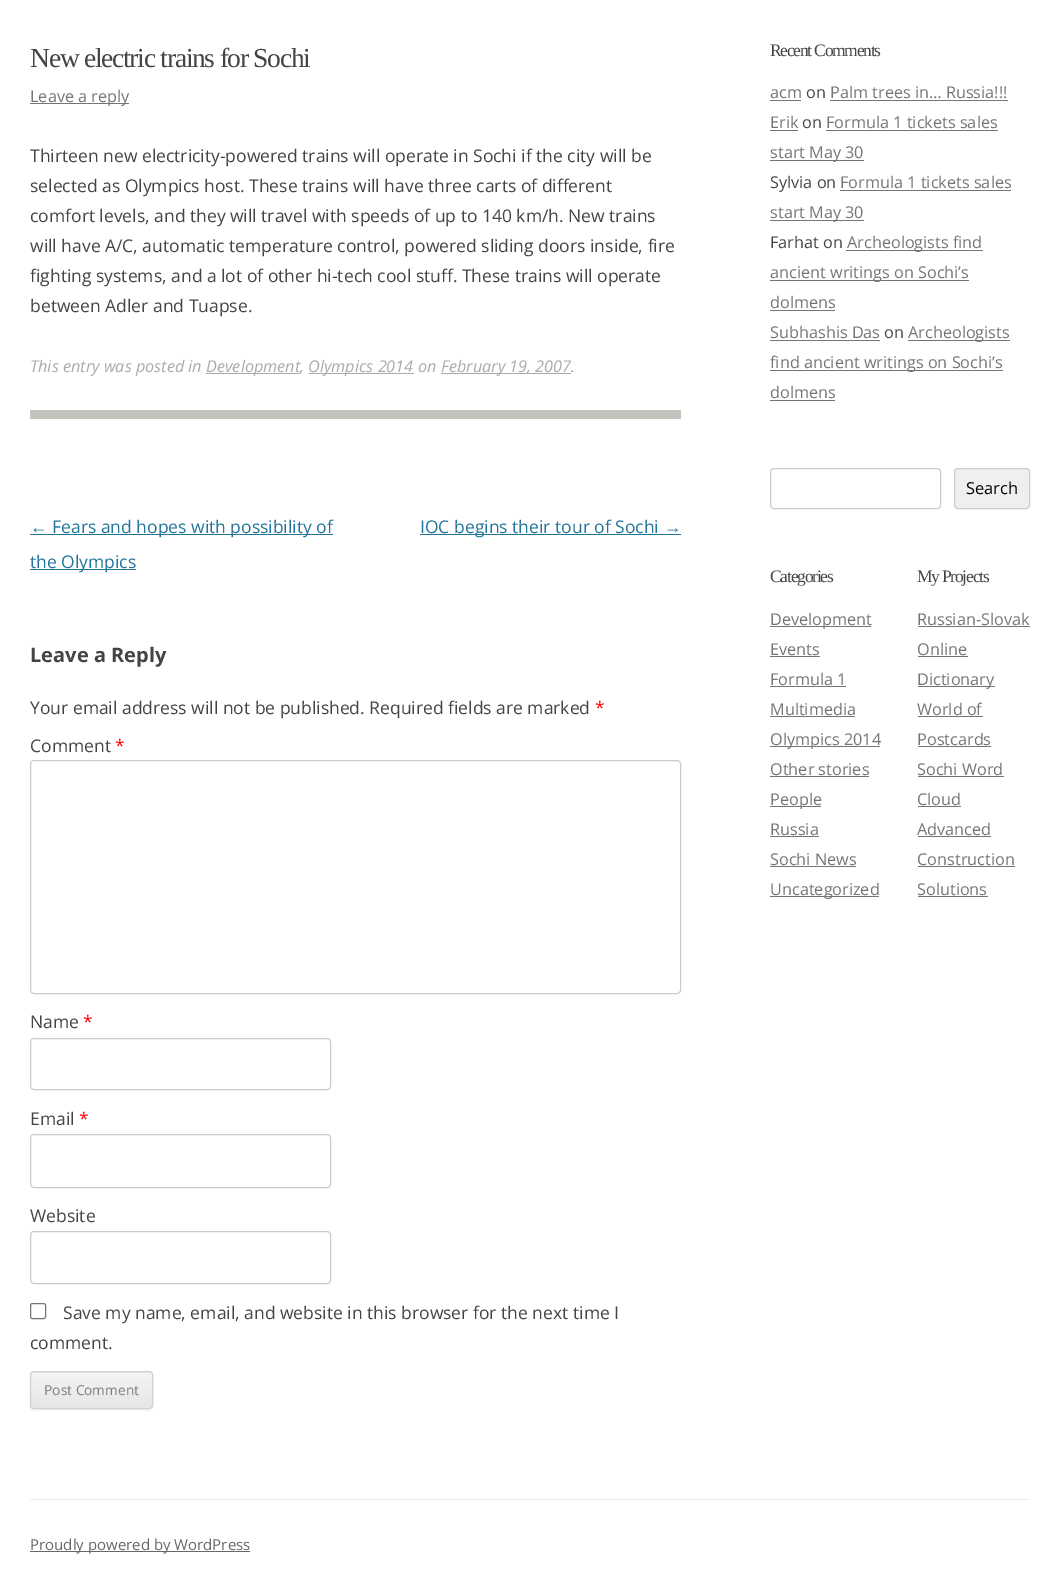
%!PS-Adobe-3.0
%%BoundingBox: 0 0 1059 1589
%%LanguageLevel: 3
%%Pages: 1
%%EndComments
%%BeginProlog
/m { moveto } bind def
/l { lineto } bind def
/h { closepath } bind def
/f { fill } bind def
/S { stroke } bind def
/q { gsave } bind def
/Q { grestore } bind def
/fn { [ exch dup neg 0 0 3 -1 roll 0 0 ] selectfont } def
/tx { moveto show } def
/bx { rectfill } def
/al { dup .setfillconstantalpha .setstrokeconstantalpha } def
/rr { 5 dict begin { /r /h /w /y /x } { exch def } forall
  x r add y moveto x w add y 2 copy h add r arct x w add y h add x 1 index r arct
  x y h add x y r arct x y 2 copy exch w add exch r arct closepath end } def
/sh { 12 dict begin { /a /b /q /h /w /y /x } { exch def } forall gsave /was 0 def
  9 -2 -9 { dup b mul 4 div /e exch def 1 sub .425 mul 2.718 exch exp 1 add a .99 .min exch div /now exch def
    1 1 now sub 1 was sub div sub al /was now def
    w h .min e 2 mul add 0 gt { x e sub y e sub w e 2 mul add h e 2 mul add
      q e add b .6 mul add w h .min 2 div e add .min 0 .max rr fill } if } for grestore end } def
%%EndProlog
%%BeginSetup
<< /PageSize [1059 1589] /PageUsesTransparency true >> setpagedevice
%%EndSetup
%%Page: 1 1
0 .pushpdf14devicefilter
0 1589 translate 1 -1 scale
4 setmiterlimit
1 setgray
0 0 1059 1589 bx
0.769 0.765 0.745 setrgbcolor
30 410 651 9 bx
/LiberationSerif-Regular 27.5 fn
0.267 setgray
30 67 m -1.25 0 (New electric trains for Sochi) ashow
0.459 setgray
30 103 99 1 bx
/OpenSans-Regular 16.25 fn
(Leave a reply) 30 102 tx
/OpenSans-Regular 17.5 fn
0.267 setgray
(Thirteen new electricity-powered trains will operate in Sochi if the city will be) 30 162 tx
(selected as Olympics host. These trains will have three carts of different) 30 192 tx
(comfort levels, and they will travel with speeds of up to 140 km/h. New trains) 30 222 tx
(will have A/C, automatic temperature control, powered sliding doors inside, fire) 30 252 tx
(fighting systems, and a lot of other hi-tech cool stuff. These trains will operate) 30 282 tx
(between Adler and Tuapse.) 30 312 tx
/OpenSans-Italic 16.25 fn
0.667 setgray
(This entry was posted in) 30 372 tx
206 373 94 1 bx
(Development,) 206 372 tx
309 373 105 1 bx
(Olympics 2014 on) 308 372 tx
441 373 130 1 bx
(February 19, 2007.) 441 372 tx
/LiberationSans-Regular 17.5 fn
0.129 0.459 0.608 setrgbcolor
(←) 30 533 tx
30 534 303 1 bx
/OpenSans-Regular 17.5 fn
(Fears and hopes with possibility of) 52 533 tx
30 569 106 1 bx
(the Olympics) 30 568 tx
420 534 261 1 bx
(IOC begins their tour of Sochi) 420 533 tx
/LiberationSans-Regular 17.5 fn
(→) 664 533 tx
/OpenSans-Bold 20 fn
0.267 setgray
(Leave a Reply) 30 662 tx
/OpenSans-Regular 17.5 fn
(Your email address will not be published. Required fields are marked) 30 714 tx
1 0 0 setrgbcolor
(*) 595 714 tx
0.267 setgray
(Comment) 30 752 tx
1 0 0 setrgbcolor
(*) 115 752 tx
0.8 setgray
30.5 760.5 650 233 3.5 rr S
0.267 setgray
(Name) 30 1028 tx
1 0 0 setrgbcolor
(*) 83 1028 tx
0.8 setgray
30.5 1038.5 300 51 3.5 rr S
0.267 setgray
(Email) 30 1125 tx
1 0 0 setrgbcolor
(*) 79 1125 tx
0.8 setgray
30.5 1134.5 300 53 3.5 rr S
0.267 setgray
(Website) 30 1222 tx
0.8 setgray
30.5 1231.5 300 52 3.5 rr S
0.463 setgray
30.5 1303.5 15 15 2 rr S
0.267 setgray
(Save my name, email, and website in this browser for the next time I) 63 1319 tx
(comment.) 30 1349 tx
0.251 setgray
30 1373 123 37 4 1 0.1 sh
0.902 setgray
30 1371 123 38 4 rr f
q
30 1371 123 38 4 rr clip newpath
q 30 1373 m 153 1373 l 153 1408 l 30 1408 l h clip newpath
<< /ShadingType 2 /ColorSpace /DeviceRGB /Coords [91 1373 91 1408] /Extend [true true] /Function << /FunctionType 2 /Domain [0 1] /C0 [0.957 0.957 0.957] /C1 [0.902 0.902 0.902] /N 1 >> >> shfill Q
Q
0.824 setgray
30.5 1371.5 122 37 3.5 rr S
/OpenSans-Regular 13.75 fn
0.486 setgray
(Post Comment) 44 1395 tx
/LiberationSerif-Regular 17.5 fn
0.267 setgray
770 56 m -1.25 0 (Recent Comments) ashow
/OpenSans-Regular 16.25 fn
0.459 setgray
(acm) 770 98 tx
770 100 31 1 bx
0.267 setgray
(on) 806 98 tx
0.459 setgray
(Palm trees in… Russia!!!) 830 98 tx
830 100 178 1 bx
(Erik) 770 128 tx
770 130 28 1 bx
0.267 setgray
(on) 802 128 tx
0.459 setgray
(Formula 1 tickets sales) 826 128 tx
826 130 172 1 bx
770 160 94 1 bx
(start May 30) 770 158 tx
0.267 setgray
(Sylvia on) 770 188 tx
0.459 setgray
(Formula 1 tickets sales) 840 188 tx
840 190 171 1 bx
770 220 94 1 bx
(start May 30) 770 218 tx
0.267 setgray
(Farhat on) 770 248 tx
0.459 setgray
846 250 137 1 bx
(Archeologists find) 847 248 tx
770 280 199 1 bx
(ancient writings on Sochi’s) 770 278 tx
(dolmens) 770 308 tx
770 310 65 1 bx
(Subhashis Das) 770 338 tx
770 340 110 1 bx
0.267 setgray
(on) 884 338 tx
0.459 setgray
908 340 102 1 bx
(Archeologists) 908 338 tx
770 370 233 1 bx
(find ancient writings on Sochi’s) 770 368 tx
(dolmens) 770 398 tx
770 400 65 1 bx
0.8 setgray
770.5 468.5 170 40 3.5 rr S
0.937 setgray
954.5 468.5 75 40 3.5 rr q f Q
0.8 setgray
S
/OpenSans-Regular 16.5 fn
0 setgray
(Search) 966 494 tx
/LiberationSerif-Regular 17.5 fn
0.267 setgray
770 582 m -1.25 0 (Categories) ashow
0.459 setgray
770 626 101 1 bx
/OpenSans-Regular 16.25 fn
(Development) 770 625 tx
(Events) 770 655 tx
770 656 50 1 bx
(Formula 1) 770 685 tx
770 686 76 1 bx
(Multimedia) 770 715 tx
770 716 85 1 bx
770 746 110 1 bx
(Olympics 2014) 770 745 tx
(Other stories) 770 775 tx
770 776 99 1 bx
770 806 51 1 bx
(People) 770 805 tx
(Russia) 770 835 tx
770 836 49 1 bx
(Sochi News) 770 865 tx
770 866 86 1 bx
770 896 109 1 bx
(Uncategorized) 770 895 tx
/LiberationSerif-Regular 17.5 fn
0.267 setgray
917 582 m -1.25 0 (My Projects) ashow
/OpenSans-Regular 16.25 fn
0.459 setgray
(Russian-Slovak) 917 625 tx
918 626 112 1 bx
(Online) 917 655 tx
918 656 50 1 bx
918 686 77 1 bx
(Dictionary) 917 685 tx
(World of) 917 715 tx
918 716 65 1 bx
(Postcards) 917 745 tx
918 746 73 1 bx
(Sochi Word) 917 775 tx
918 776 86 1 bx
(Cloud) 917 805 tx
918 806 43 1 bx
(Advanced) 917 835 tx
918 836 73 1 bx
(Construction) 917 865 tx
918 866 97 1 bx
(Solutions) 917 895 tx
918 896 70 1 bx
0.929 setgray
30 1499 1000 1 bx
0.408 setgray
30 1551 220 1 bx
/OpenSans-Regular 15 fn
(Proudly powered by WordPress) 30 1550 tx
.poppdf14devicefilter showpage
%%EOF
